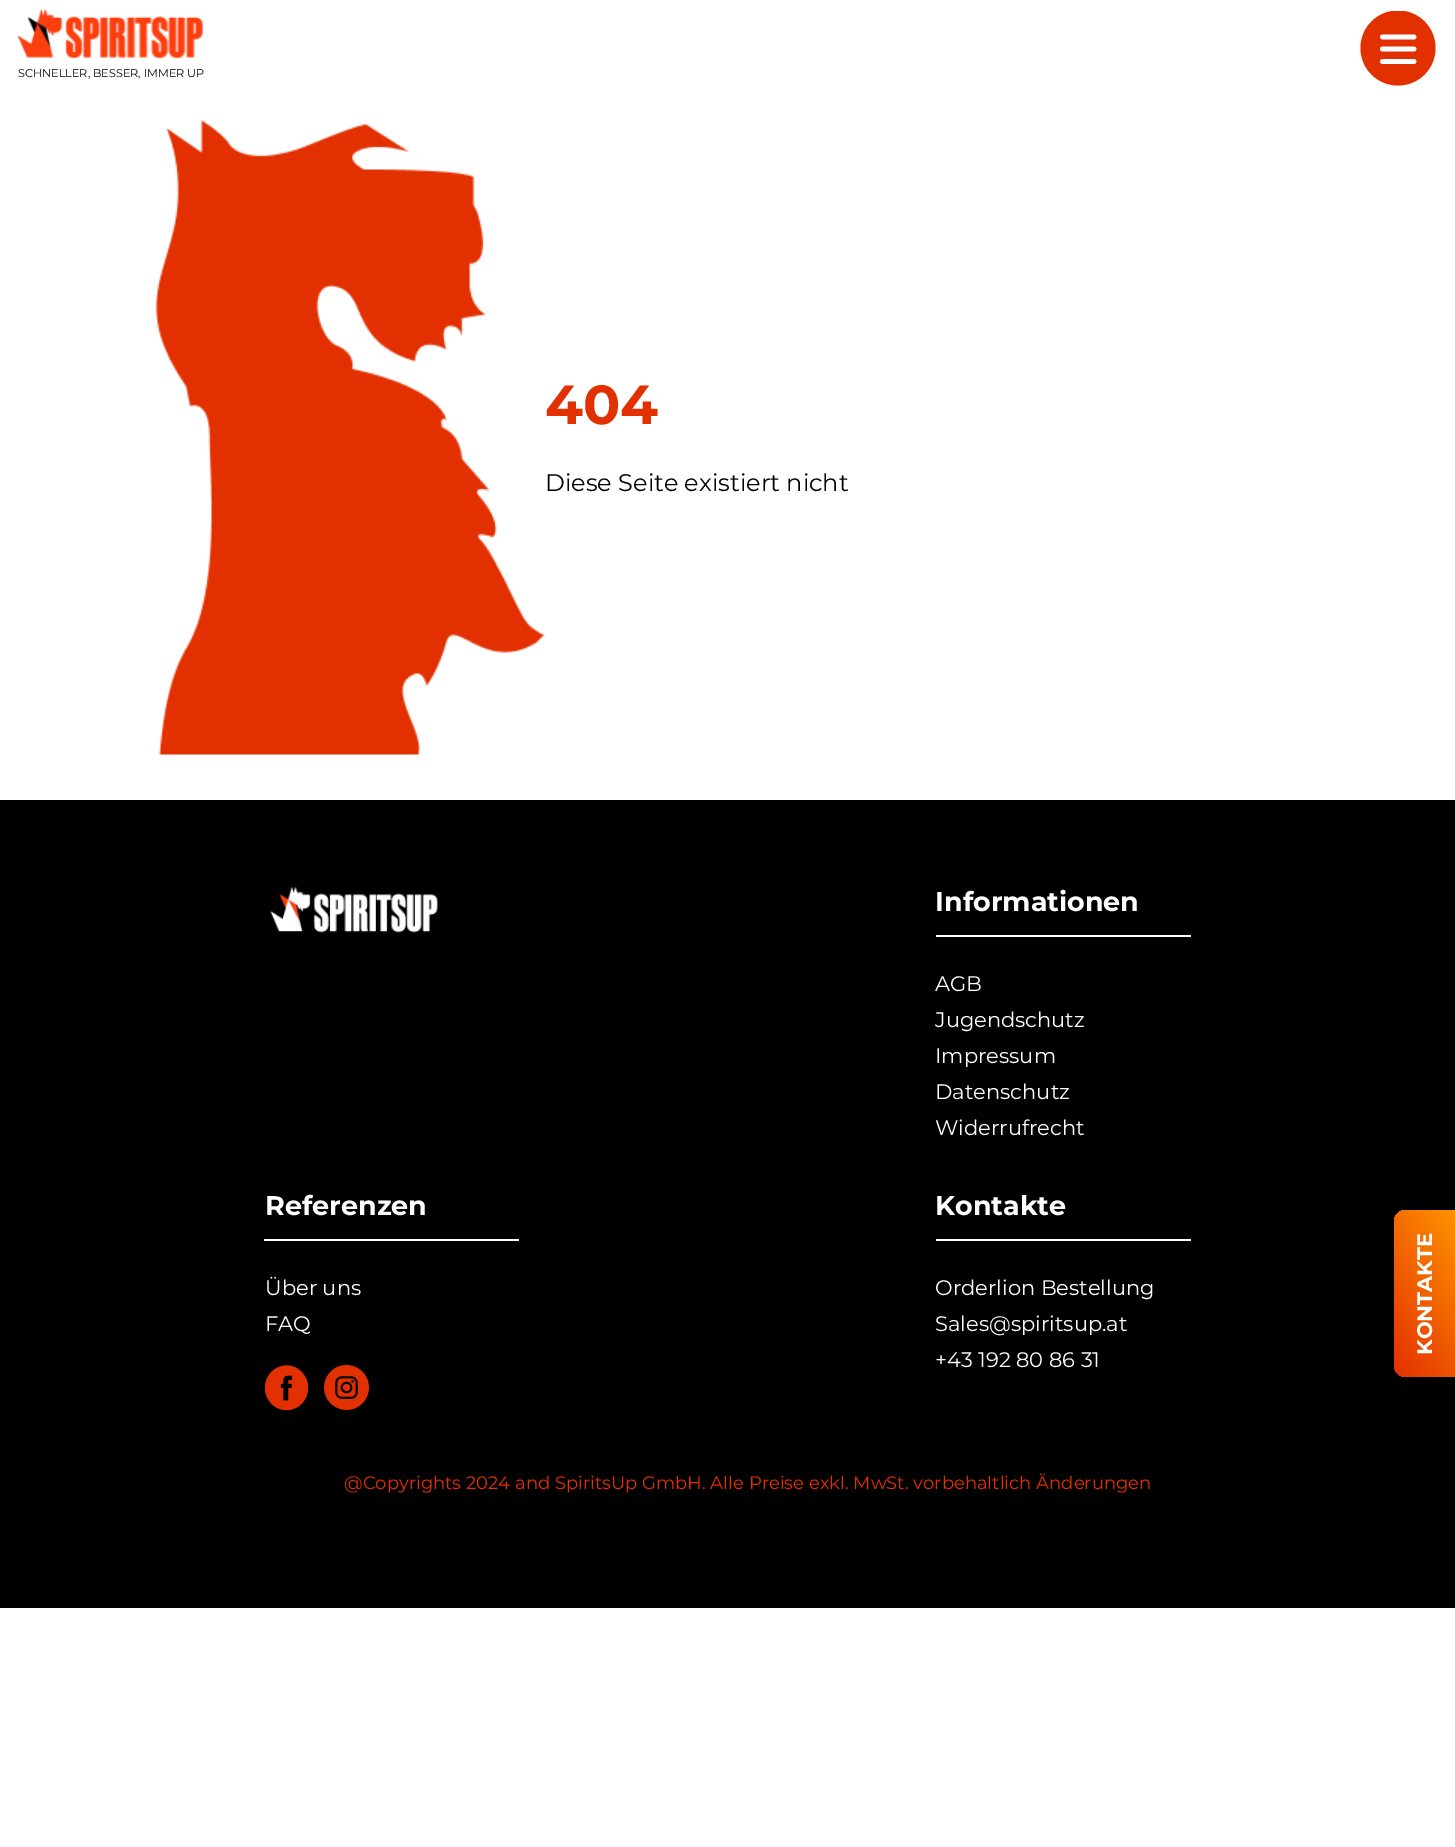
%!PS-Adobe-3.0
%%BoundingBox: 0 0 1455 1847
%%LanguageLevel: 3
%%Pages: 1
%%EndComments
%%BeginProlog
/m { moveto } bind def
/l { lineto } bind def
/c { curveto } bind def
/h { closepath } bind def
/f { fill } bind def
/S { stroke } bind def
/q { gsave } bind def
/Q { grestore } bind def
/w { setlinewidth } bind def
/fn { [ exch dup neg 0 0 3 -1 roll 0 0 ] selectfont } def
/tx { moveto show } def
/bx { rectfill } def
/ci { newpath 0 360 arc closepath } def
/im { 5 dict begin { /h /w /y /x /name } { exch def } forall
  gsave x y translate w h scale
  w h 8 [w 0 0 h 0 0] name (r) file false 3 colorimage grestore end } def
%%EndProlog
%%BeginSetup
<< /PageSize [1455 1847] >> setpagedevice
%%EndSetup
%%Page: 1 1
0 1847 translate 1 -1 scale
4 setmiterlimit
1 setgray
0 0 1455 1847 bx
(image0.raw) 18 9 185 50 im
/Montserrat-Regular 11.25 fn
0 setgray
(SCHNELLER, BESSER, IMMER UP) 18 77 tx
q
1359 11 78 75 rectclip
0.89 0.188 0 setrgbcolor
1398 48 37.5 ci f
Q
1 setgray
4.8 w
1 setlinecap
1382.5 37 m 1414 37 l 1382.5 49 m 1414 49 l 1382.5 61.5 m 1414 61.5 l S
(image1.raw) 155 120 390 635 im
/Montserrat-Bold 55 fn
0.89 0.188 0 setrgbcolor
(404) 545 424 tx
/Montserrat-Regular 24 fn
0 setgray
(Diese Seite existiert nicht) 545 491 tx
0 800 1455 808 bx
(image2.raw) 270 886 168 47 im
1 setgray
936 935 255 2 bx
/Montserrat-Bold 27 fn
(Informationen) 935 911 tx
/Montserrat-Regular 21 fn
(AGB) 935 991 tx
(Jugendschutz) 935 1027 tx
(Impressum) 935 1063 tx
(Datenschutz) 935 1099 tx
(Widerrufrecht) 935 1135 tx
264 1239 255 2 bx
/Montserrat-Bold 27 fn
(Referenzen) 265 1215 tx
/Montserrat-Regular 21 fn
(Über uns) 265 1295 tx
(FAQ) 265 1331 tx
(image3.raw) 265 1365 43 45 im
(image4.raw) 324 1365 45 45 im
936 1239 255 2 bx
/Montserrat-Bold 27 fn
(Kontakte) 935 1215 tx
/Montserrat-Regular 21 fn
(Orderlion Bestellung) 935 1295 tx
(Sales@spiritsup.at) 935 1331 tx
(+43 192 80 86 31) 935 1367 tx
/Montserrat-Regular 18 fn
0.89 0.188 0 setrgbcolor
(@Copyrights 2024 and SpiritsUp GmbH. Alle Preise exkl. MwSt. vorbehaltlich Änderungen) 344 1489 tx
q 1394 1365 m 1394 1222 l 1394 1215 1400 1210 1406 1210 c 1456 1210 l 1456 1377 l 1406 1377 l 1400 1377 1394 1372 1394 1365 c h clip newpath
<< /ShadingType 2 /ColorSpace /DeviceRGB /Coords [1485 1253 1365 1334] /Extend [true true] /Function << /FunctionType 2 /Domain [0 1] /C0 [1 0.573 0] /C1 [0.89 0.188 0] /N 1 >> >> shfill Q
/Montserrat-Bold 21 fn
1 setgray
q 1432 1355 translate -90 rotate 0 0 m (KONTAKTE) show Q
showpage
%%EOF
